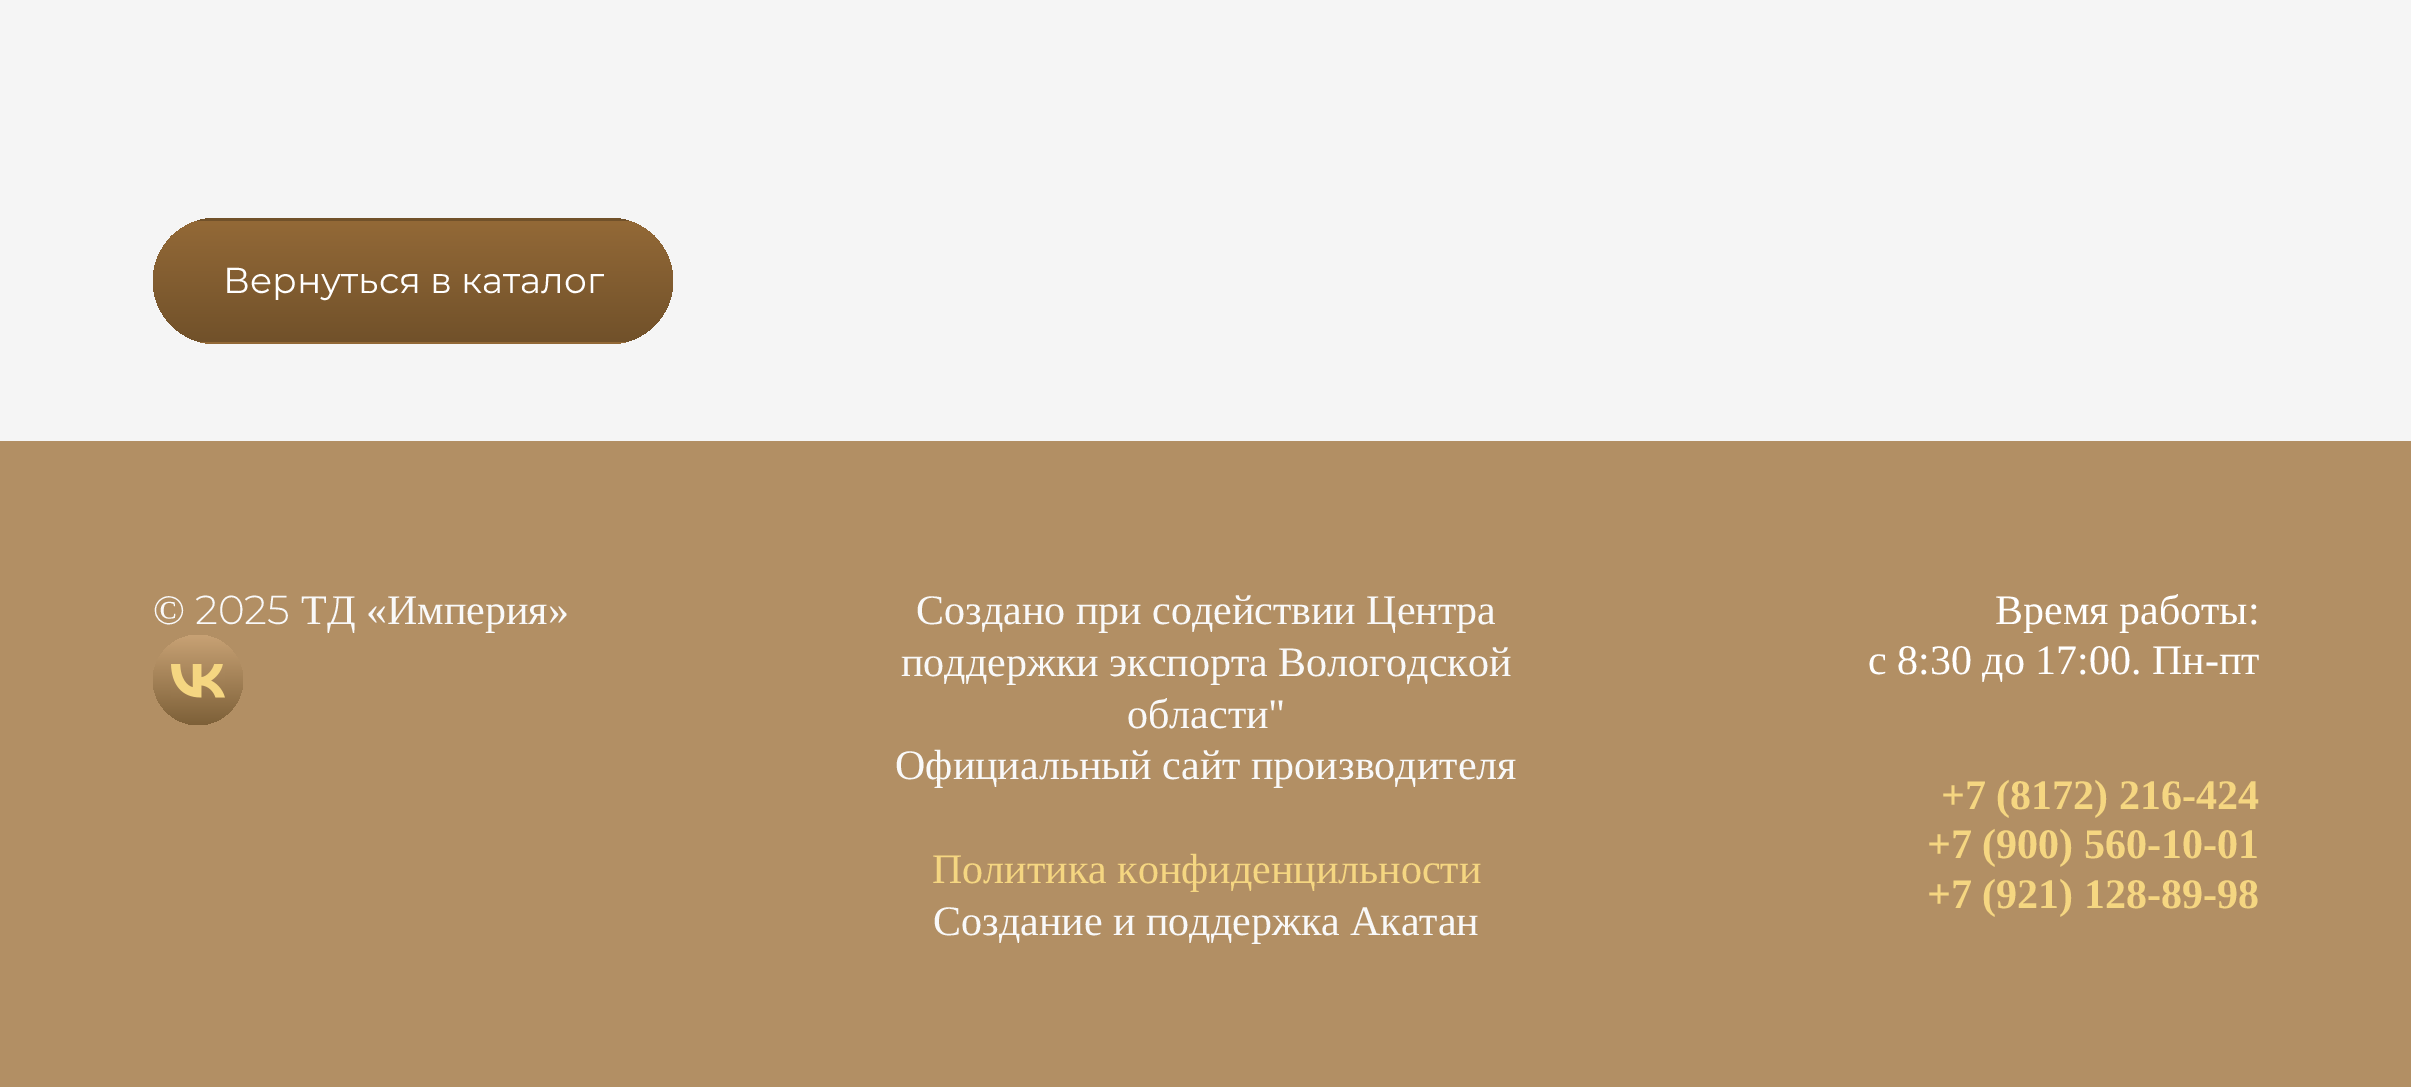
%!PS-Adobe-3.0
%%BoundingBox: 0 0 2411 1087
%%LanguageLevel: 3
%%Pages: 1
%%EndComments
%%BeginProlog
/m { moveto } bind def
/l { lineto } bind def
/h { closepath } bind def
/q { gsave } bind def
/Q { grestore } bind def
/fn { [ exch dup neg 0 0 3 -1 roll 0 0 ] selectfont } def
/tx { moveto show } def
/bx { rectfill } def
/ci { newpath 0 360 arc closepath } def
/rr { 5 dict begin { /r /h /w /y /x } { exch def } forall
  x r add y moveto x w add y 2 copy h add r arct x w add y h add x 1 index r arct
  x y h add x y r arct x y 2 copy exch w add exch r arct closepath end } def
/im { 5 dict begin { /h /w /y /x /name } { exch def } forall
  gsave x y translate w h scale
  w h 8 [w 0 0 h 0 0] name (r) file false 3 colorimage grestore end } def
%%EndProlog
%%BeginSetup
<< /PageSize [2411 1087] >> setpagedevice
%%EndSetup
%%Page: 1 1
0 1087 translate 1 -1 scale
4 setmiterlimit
0.961 setgray
0 0 2411 1087 bx
q
153 218 520 126 63 rr clip newpath
q 197 218 m 629 218 l 629 221 l 197 221 l h clip newpath
<< /ShadingType 2 /ColorSpace /DeviceRGB /Coords [413 99 413 221] /Extend [true true] /Function << /FunctionType 2 /Domain [0 1] /C0 [0.576 0.412 0.216] /C1 [0.443 0.318 0.165] /N 1 >> >> shfill Q
q 153 221 m 673 221 l 673 342 l 153 342 l h clip newpath
<< /ShadingType 2 /ColorSpace /DeviceRGB /Coords [413 220 413 342] /Extend [true true] /Function << /FunctionType 2 /Domain [0 1] /C0 [0.576 0.412 0.216] /C1 [0.443 0.318 0.165] /N 1 >> >> shfill Q
q 200 342 m 626 342 l 626 344 l 200 344 l h clip newpath
<< /ShadingType 2 /ColorSpace /DeviceRGB /Coords [413 342 413 464] /Extend [true true] /Function << /FunctionType 2 /Domain [0 1] /C0 [0.576 0.412 0.216] /C1 [0.443 0.318 0.165] /N 1 >> >> shfill Q
Q
/Montserrat-Regular 36 fn
1 setgray
(Вернуться в каталог) 223 293 tx
0.698 0.561 0.392 setrgbcolor
0 441 2411 646 bx
/LiberationSerif-Regular 42 fn
0.976 setgray
(©) 153 624 tx
/Montserrat-Light 40.5 fn
(2025) 195 624 tx
/LiberationSerif-Regular 42 fn
(ТД «Империя») 301 624 tx
q 198 680 45 ci clip newpath
<< /ShadingType 2 /ColorSpace /DeviceRGB /Coords [198 635 198 725] /Extend [true true] /Function << /FunctionType 2 /Domain [0 1] /C0 [0.784 0.635 0.459] /C1 [0.49 0.376 0.22] /N 1 >> >> shfill Q
(image0.raw) 171 664 54 34 im
(Создано при содействии Центра) 916 624 tx
(поддержки экспорта Вологодской) 901 676 tx
(области") 1127 728 tx
(Официальный сайт производителя) 895 779 tx
0.961 0.839 0.506 setrgbcolor
(Политика конфиденцильности) 932 883 tx
0.976 setgray
(Создание и поддержка Акатан) 933 935 tx
1 setgray
(Время работы:) 1995 624 tx
(с 8:30 до 17:00. Пн-пт) 1868 674 tx
/LiberationSerif-Bold 42 fn
0.961 0.839 0.506 setrgbcolor
(+7 \(8172\) 216-424) 1941 809 tx
(+7 \(900\) 560-10-01) 1927 858 tx
(+7 \(921\) 128-89-98) 1927 908 tx
showpage
%%EOF
